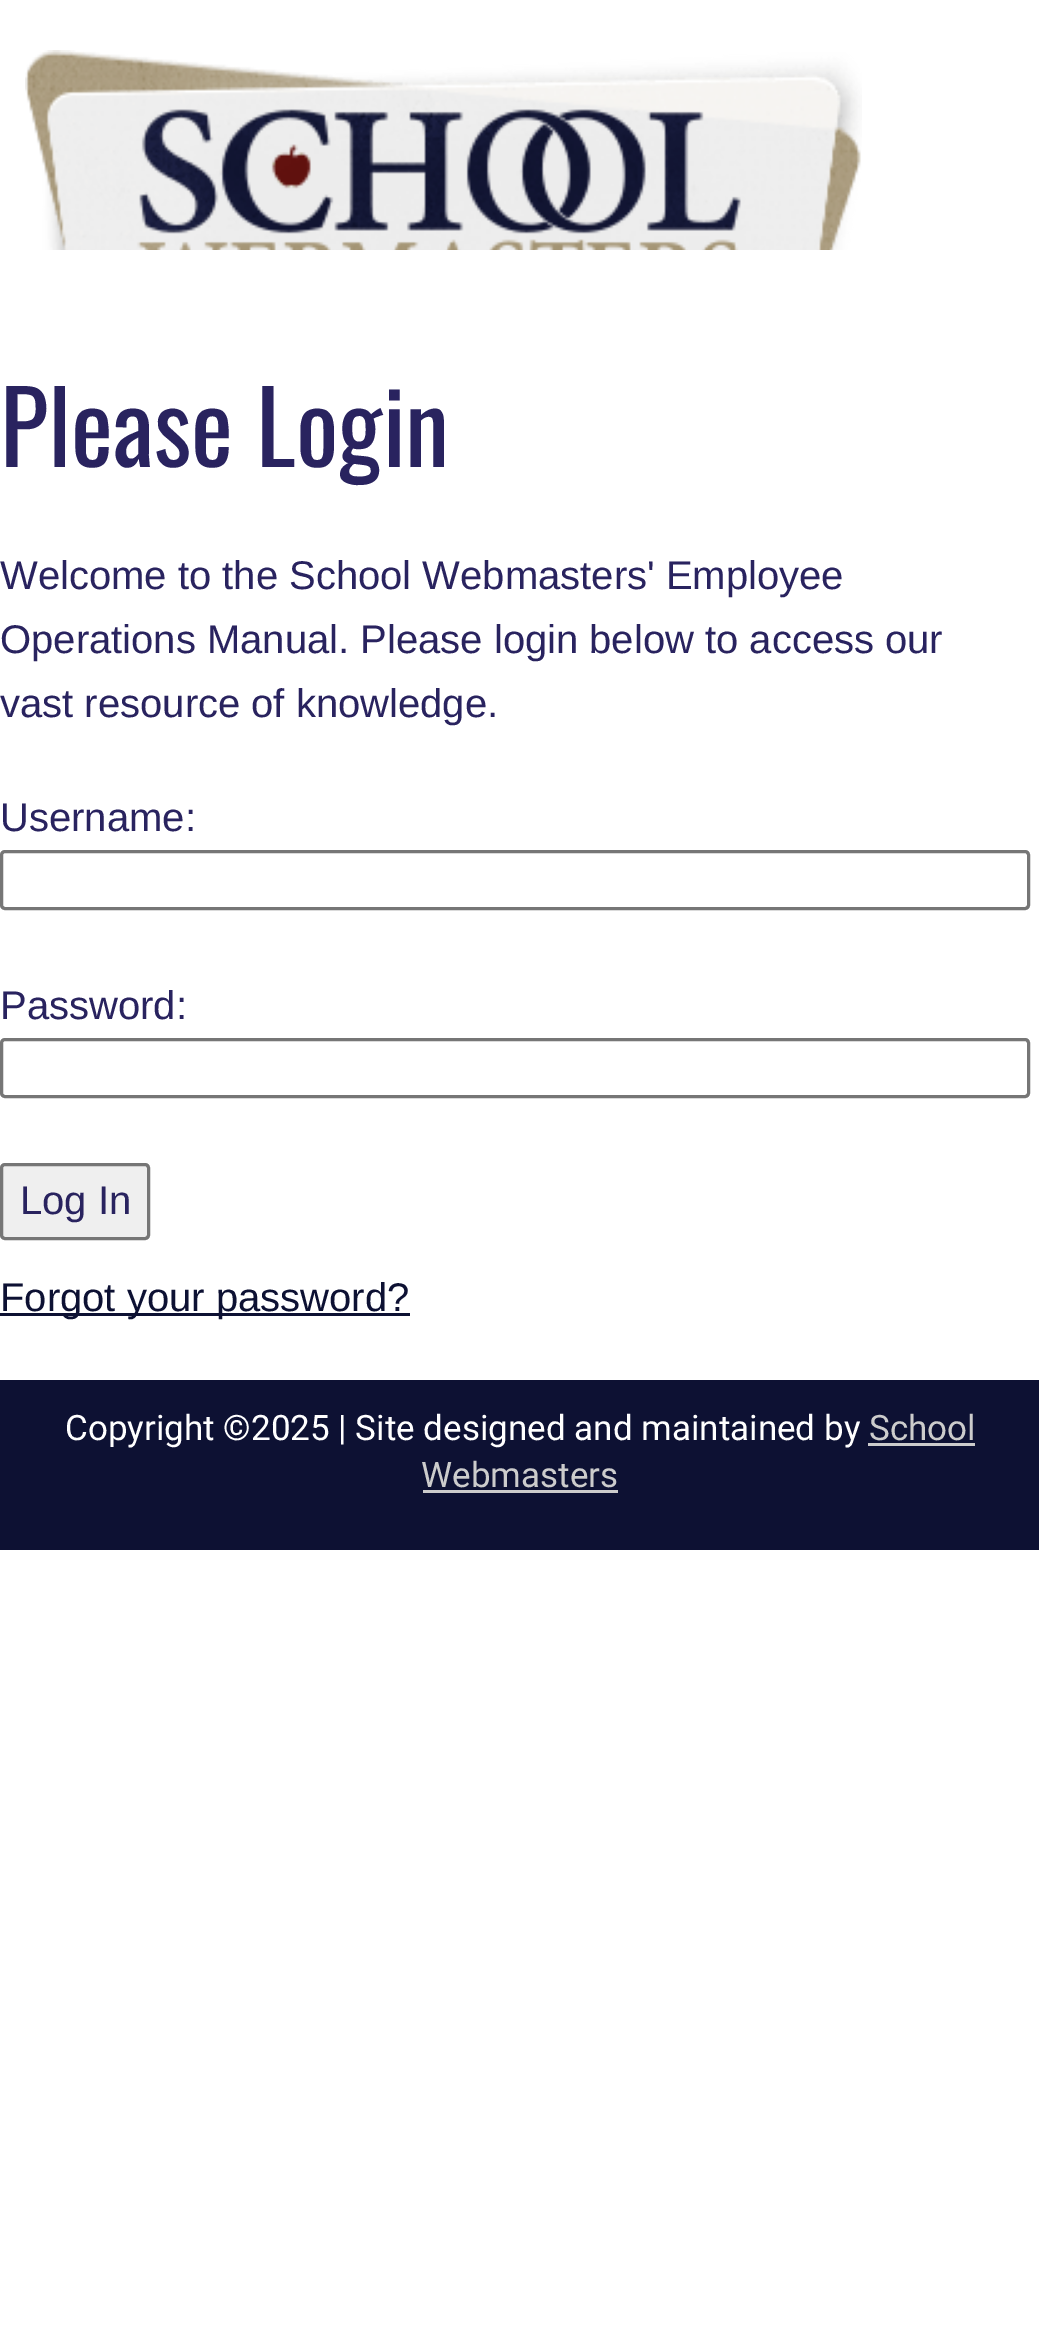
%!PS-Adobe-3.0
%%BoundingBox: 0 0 1039 2342
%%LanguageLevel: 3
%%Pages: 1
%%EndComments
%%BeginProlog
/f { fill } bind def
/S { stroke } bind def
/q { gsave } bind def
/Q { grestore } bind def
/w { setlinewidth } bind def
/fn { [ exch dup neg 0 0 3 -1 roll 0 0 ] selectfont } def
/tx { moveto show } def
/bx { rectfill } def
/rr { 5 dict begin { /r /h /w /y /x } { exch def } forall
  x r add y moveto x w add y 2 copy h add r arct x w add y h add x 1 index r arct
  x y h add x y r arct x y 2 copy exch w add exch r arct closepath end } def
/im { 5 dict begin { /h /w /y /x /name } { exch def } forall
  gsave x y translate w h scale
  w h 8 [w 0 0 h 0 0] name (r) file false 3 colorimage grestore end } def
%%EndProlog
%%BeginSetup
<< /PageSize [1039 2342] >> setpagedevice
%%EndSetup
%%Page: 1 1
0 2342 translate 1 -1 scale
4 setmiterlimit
1 setgray
0 0 1039 2342 bx
(image0.raw) 25 50 837 200 im
/Oswald-Regular 100 fn
0.161 0.137 0.373 setrgbcolor
(Please Login) 0 467 tx
/LiberationSans-Regular 40 fn
(Welcome to the School Webmasters' Employee) 0 589 tx
(Operations Manual. Please login below to access our) 0 653 tx
(vast resource of knowledge.) 0 717 tx
(Username:) 0 831 tx
0.463 setgray
3 w
1.5 851.5 1027 57 3.5 rr S
0.161 0.137 0.373 setrgbcolor
(Password:) 0 1019 tx
0.463 setgray
1.5 1039.5 1027 57 3.5 rr S
0.937 setgray
1.5 1164.5 147 74 3.5 rr q f Q
0.463 setgray
S
0.161 0.137 0.373 setrgbcolor
(Log In) 20 1214 tx
0.051 0.067 0.2 setrgbcolor
0 1313 410 3 bx
(Forgot your password?) 0 1311 tx
0 1380 1039 170 bx
/Roboto-Regular 35 fn
1 setgray
(Copyright ©2025 | Site designed and maintained by) 65 1440 tx
0.8 setgray
(School) 869 1440 tx
868 1443 107 3 bx
(Webmasters) 421 1487 tx
423 1490 195 3 bx
showpage
%%EOF
